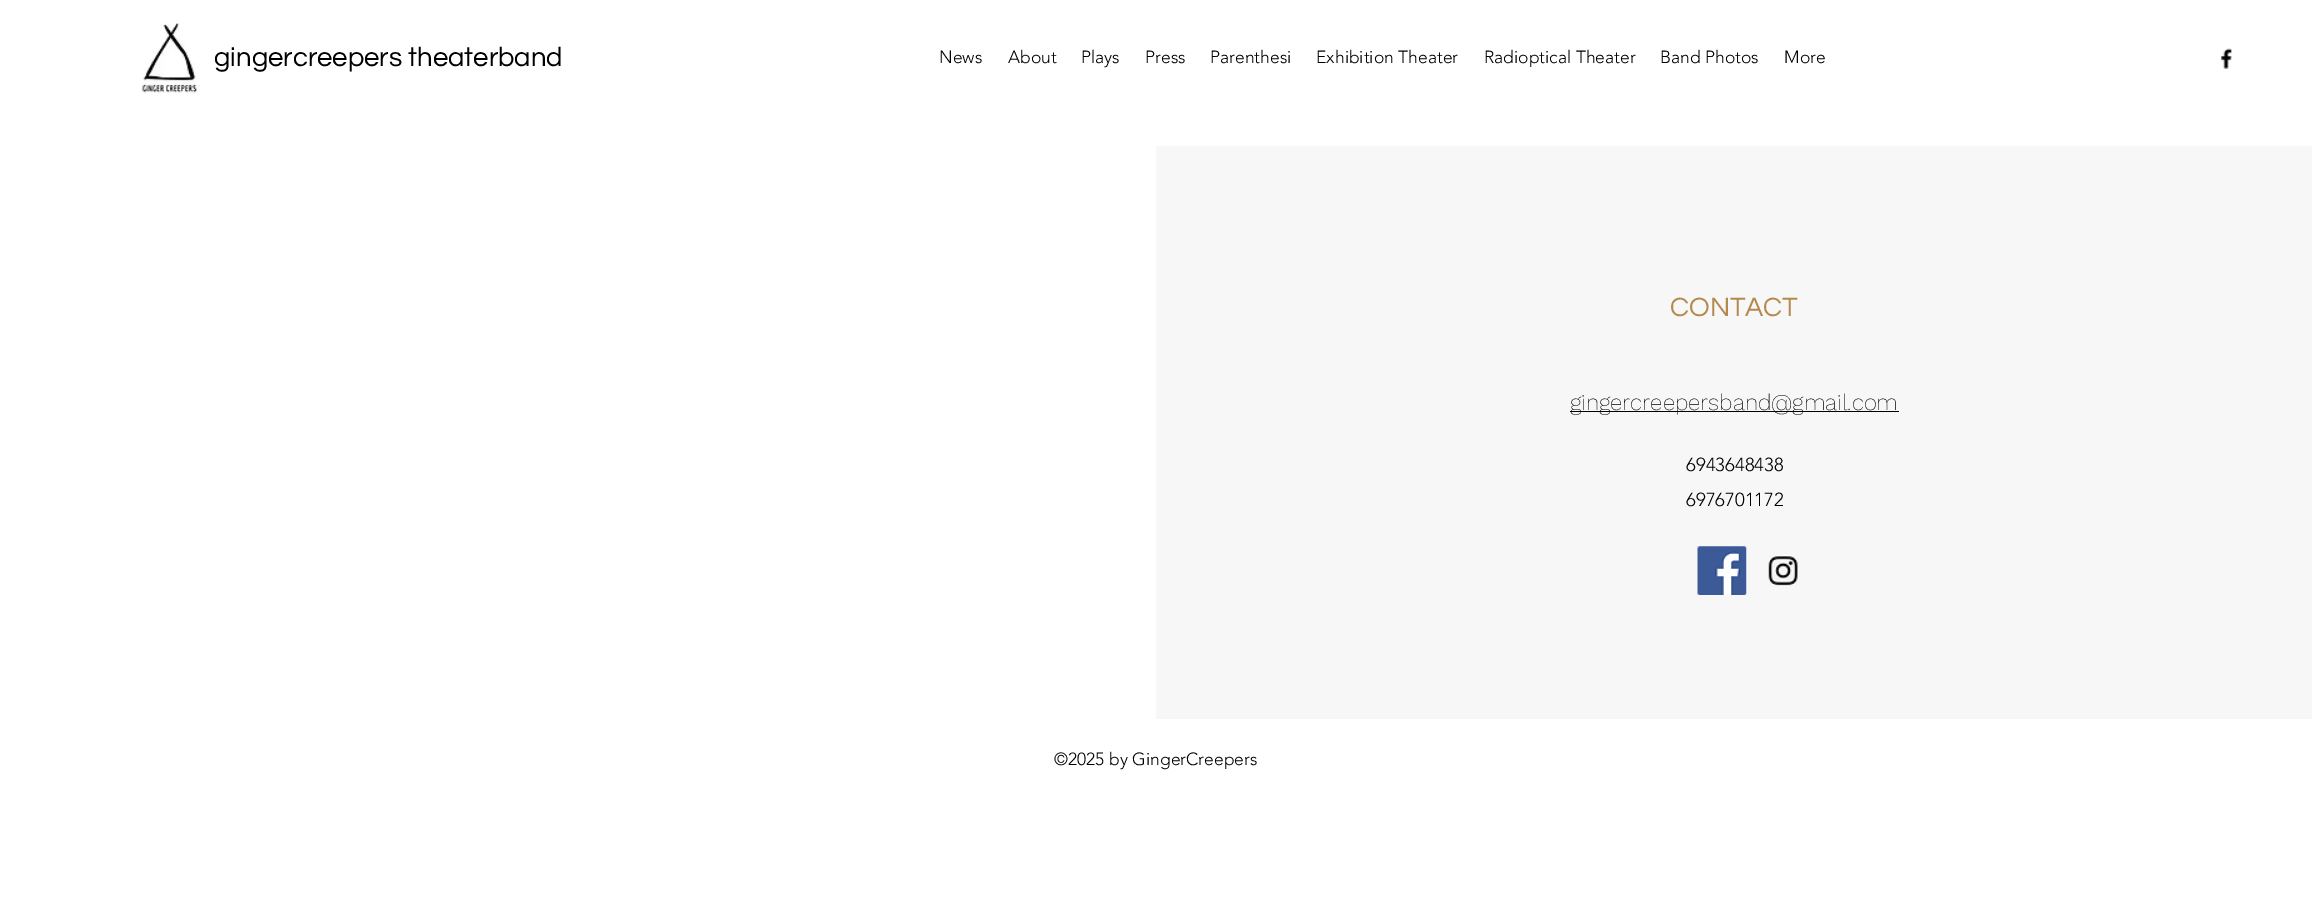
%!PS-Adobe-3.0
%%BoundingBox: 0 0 2312 906
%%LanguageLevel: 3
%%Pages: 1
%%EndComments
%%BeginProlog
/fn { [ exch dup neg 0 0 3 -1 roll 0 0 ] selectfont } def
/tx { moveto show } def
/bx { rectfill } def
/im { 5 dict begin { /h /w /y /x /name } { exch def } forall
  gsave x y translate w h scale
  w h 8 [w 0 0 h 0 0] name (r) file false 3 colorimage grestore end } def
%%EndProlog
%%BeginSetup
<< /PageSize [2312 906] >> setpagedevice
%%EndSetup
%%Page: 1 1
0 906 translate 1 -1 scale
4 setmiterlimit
1 setgray
0 0 2312 906 bx
(image0.raw) 140 23 60 70 im
/Questrial-Regular 27.5 fn
0 setgray
(gingercreepers theaterband) 214 66 tx
(image1.raw) 2221 48 11 21 im
/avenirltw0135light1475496-Light 17.5 fn
(News) 939 63 tx
(About) 1008 63 tx
(Plays) 1081 63 tx
(Press) 1145 63 tx
(Parenthesi) 1210 63 tx
(Exhibition Theater) 1316 63 tx
(Radioptical Theater) 1484 63 tx
(Band Photos) 1660 63 tx
(More) 1784 63 tx
0.969 setgray
1156 146 1156 573 bx
/Questrial-Regular 27.5 fn
0.702 0.541 0.298 setrgbcolor
(CONTACT) 1670 316 tx
0 setgray
1570 411 329 1 bx
/WorkSans-ExtraLight 22.5 fn
(gingercreepersband@gmail.com) 1570 410 tx
/avenirltw0135light1475496-Light 18.75 fn
(6943648438) 1686 471 tx
(6976701172) 1686 506 tx
(image2.raw) 1697 546 50 49 im
(image3.raw) 1768 555 31 31 im
/avenirltw0135light1475496-Light 17.5 fn
(©2025 by GingerCreepers) 1054 765 tx
showpage
%%EOF
